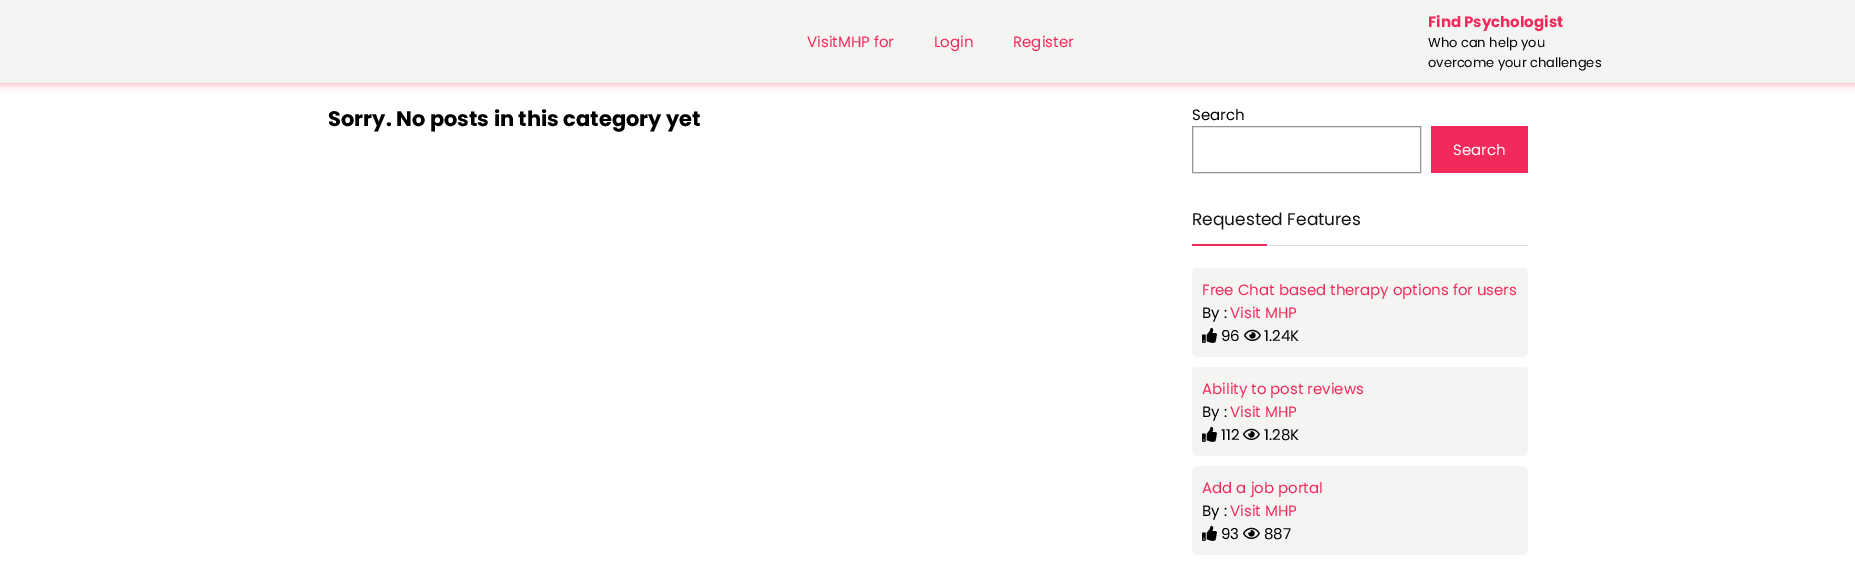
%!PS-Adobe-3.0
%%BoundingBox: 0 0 1855 578
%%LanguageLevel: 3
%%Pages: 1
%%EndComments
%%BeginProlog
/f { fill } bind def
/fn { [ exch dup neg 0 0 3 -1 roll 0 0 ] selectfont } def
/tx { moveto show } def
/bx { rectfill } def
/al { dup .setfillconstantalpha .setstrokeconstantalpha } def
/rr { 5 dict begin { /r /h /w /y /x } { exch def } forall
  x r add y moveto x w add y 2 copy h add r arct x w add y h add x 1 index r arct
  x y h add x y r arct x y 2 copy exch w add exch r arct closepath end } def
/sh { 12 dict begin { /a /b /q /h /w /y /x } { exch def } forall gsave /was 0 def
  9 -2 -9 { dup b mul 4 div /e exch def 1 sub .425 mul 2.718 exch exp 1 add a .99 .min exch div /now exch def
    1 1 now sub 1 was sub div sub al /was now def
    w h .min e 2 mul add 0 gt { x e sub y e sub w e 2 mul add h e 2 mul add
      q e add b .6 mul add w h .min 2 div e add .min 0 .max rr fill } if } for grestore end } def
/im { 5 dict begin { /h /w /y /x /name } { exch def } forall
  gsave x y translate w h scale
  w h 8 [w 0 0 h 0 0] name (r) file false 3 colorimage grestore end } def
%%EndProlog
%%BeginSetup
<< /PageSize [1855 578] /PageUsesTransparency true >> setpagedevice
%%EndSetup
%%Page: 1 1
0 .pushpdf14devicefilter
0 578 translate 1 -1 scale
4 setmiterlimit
1 setgray
0 0 1855 578 bx
0.949 0.161 0.357 setrgbcolor
0 0 1855 83 0 5 0.5 sh
0.957 0.957 0.949 setrgbcolor
0 0 1855 83 bx
/Poppins-Regular 15 fn
0.949 0.161 0.357 setrgbcolor
(VisitMHP for) 807 47 tx
(Login) 934 47 tx
(Register) 1013 47 tx
/Poppins-Bold 15 fn
(Find Psychologist) 1428 27 tx
/Poppins-Regular 13 fn
0 setgray
(Who can help you) 1428 47 tx
(overcome your challenges) 1428 67 tx
/Poppins-Bold 21 fn
(Sorry. No posts in this category yet) 328 126 tx
/Poppins-Regular 15 fn
(Search) 1192 120 tx
0.58 setgray
1192.5 126.5 228 46 rectstroke
0.949 0.161 0.357 setrgbcolor
1431 126 97 47 bx
1 setgray
(Search) 1453 155 tx
0.867 setgray
1267 245 261 1 bx
/Poppins-Regular 17 fn
0.067 setgray
(Requested Features) 1192 225 tx
0.949 0.161 0.357 setrgbcolor
1192 244 75 2 bx
0.957 0.957 0.949 setrgbcolor
1192 268 336 89 5 rr f
/Poppins-Regular 15 fn
0.949 0.161 0.357 setrgbcolor
(Free Chat based therapy options for users) 1202 295 tx
0 setgray
(By :) 1202 318 tx
0.949 0.161 0.357 setrgbcolor
(Visit MHP) 1230 318 tx
(image0.raw) 1202 327 15 16 im
0 setgray
(96) 1221 341 tx
(image1.raw) 1244 329 17 12 im
(1.24K) 1264 341 tx
0.957 0.957 0.949 setrgbcolor
1192 367 336 89 5 rr f
0.949 0.161 0.357 setrgbcolor
(Ability to post reviews) 1202 394 tx
0 setgray
(By :) 1202 417 tx
0.949 0.161 0.357 setrgbcolor
(Visit MHP) 1230 417 tx
(image0.raw) 1202 426 15 16 im
0 setgray
(112) 1221 440 tx
(image1.raw) 1243 428 17 12 im
(1.28K) 1264 440 tx
0.957 0.957 0.949 setrgbcolor
1192 466 336 89 5 rr f
0.949 0.161 0.357 setrgbcolor
(Add a job portal) 1202 493 tx
0 setgray
(By :) 1202 516 tx
0.949 0.161 0.357 setrgbcolor
(Visit MHP) 1230 516 tx
(image0.raw) 1202 525 15 16 im
0 setgray
(93) 1221 539 tx
(image1.raw) 1243 527 17 12 im
(887) 1264 539 tx
.poppdf14devicefilter showpage
%%EOF
